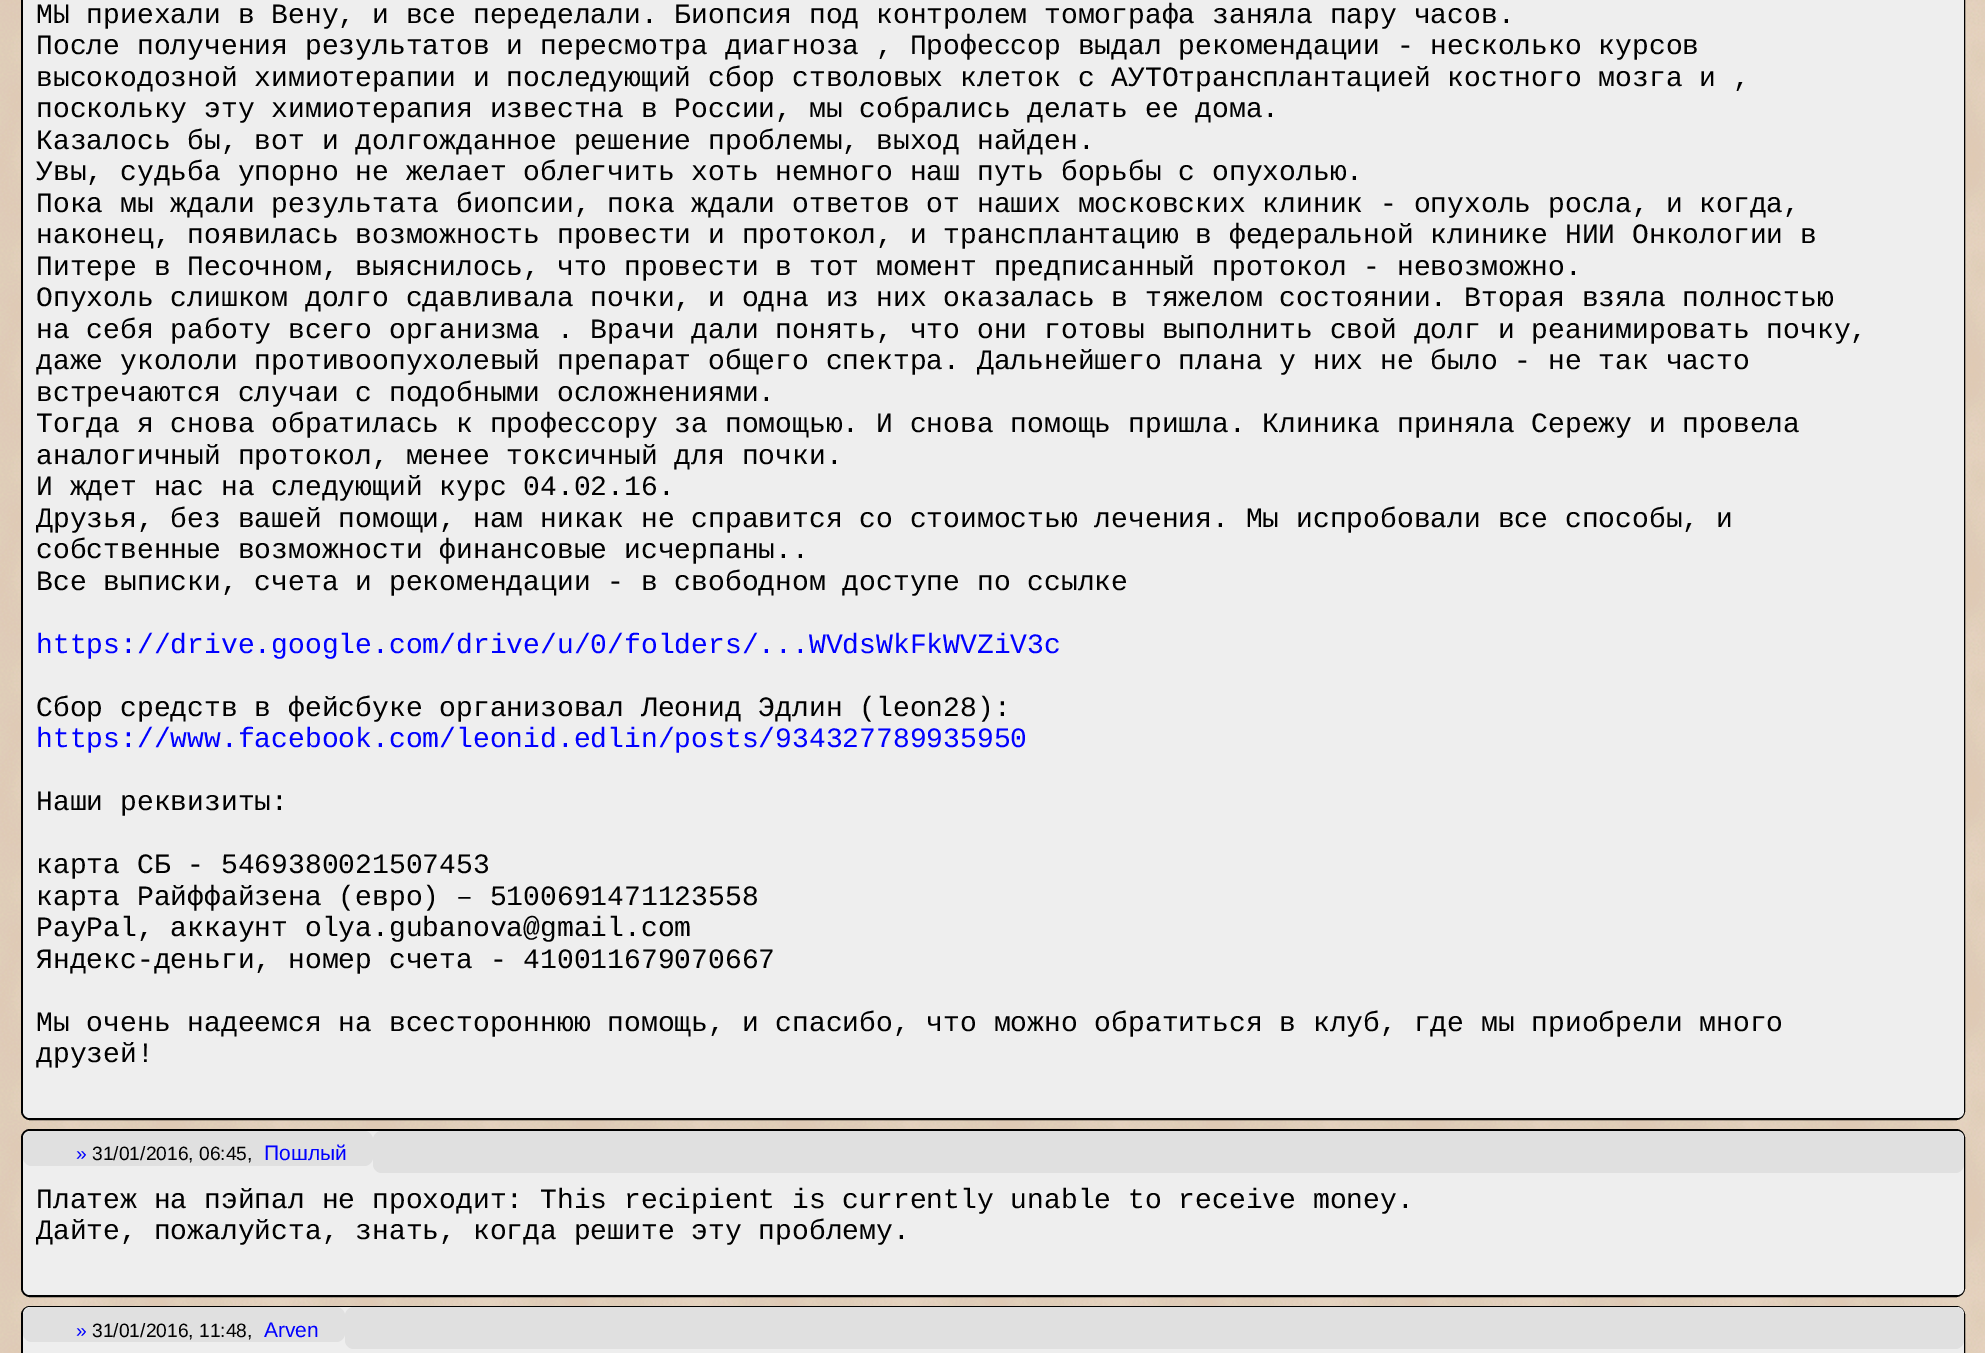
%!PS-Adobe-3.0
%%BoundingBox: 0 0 1985 1353
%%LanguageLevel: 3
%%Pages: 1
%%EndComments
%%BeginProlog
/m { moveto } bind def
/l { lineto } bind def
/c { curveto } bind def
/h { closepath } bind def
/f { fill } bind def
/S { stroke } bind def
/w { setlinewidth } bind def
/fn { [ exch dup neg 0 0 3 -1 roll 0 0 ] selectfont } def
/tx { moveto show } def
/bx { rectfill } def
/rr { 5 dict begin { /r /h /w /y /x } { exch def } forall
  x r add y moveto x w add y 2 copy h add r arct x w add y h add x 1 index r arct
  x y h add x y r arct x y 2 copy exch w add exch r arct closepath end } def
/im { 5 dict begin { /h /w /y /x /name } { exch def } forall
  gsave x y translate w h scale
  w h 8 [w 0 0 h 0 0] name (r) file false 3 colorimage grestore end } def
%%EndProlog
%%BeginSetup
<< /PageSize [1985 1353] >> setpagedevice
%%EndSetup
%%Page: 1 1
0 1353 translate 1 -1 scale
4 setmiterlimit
1 setgray
0 0 1985 1353 bx
(image0.raw) 0 0 1985 1353 im
0 setgray
2 w
22 -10 1942 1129 8 rr S
0.933 setgray
23 0 1941 1083 bx
/LiberationMono-Regular 28 fn
0 setgray
(МЫ приехали в Вену, и все переделали. Биопсия под контролем томографа заняла пару часов.) 36 23 tx
(После получения результатов и пересмотра диагноза , Профессор выдал рекомендации - несколько курсов) 36 54 tx
(высокодозной химиотерапии и последующий сбор стволовых клеток с АУТОтрансплантацией костного мозга и ,) 36 86 tx
(поскольку эту химиотерапия известна в России, мы собрались делать ее дома.) 36 117 tx
(Казалось бы, вот и долгожданное решение проблемы, выход найден.) 36 149 tx
(Увы, судьба упорно не желает облегчить хоть немного наш путь борьбы с опухолью.) 36 180 tx
(Пока мы ждали результата биопсии, пока ждали ответов от наших московских клиник - опухоль росла, и когда,) 36 212 tx
(наконец, появилась возможность провести и протокол, и трансплантацию в федеральной клинике НИИ Онкологии в) 36 243 tx
(Питере в Песочном, выяснилось, что провести в тот момент предписанный протокол - невозможно.) 36 275 tx
(Опухоль слишком долго сдавливала почки, и одна из них оказалась в тяжелом состоянии. Вторая взяла полностью) 36 306 tx
(на себя работу всего организма . Врачи дали понять, что они готовы выполнить свой долг и реанимировать почку,) 36 338 tx
(даже укололи противоопухолевый препарат общего спектра. Дальнейшего плана у них не было - не так часто) 36 369 tx
(встречаются случаи с подобными осложнениями.) 36 401 tx
(Тогда я снова обратилась к профессору за помощью. И снова помощь пришла. Клиника приняла Сережу и провела) 36 432 tx
(аналогичный протокол, менее токсичный для почки.) 36 464 tx
(И ждет нас на следующий курс 04.02.16.) 36 495 tx
(Друзья, без вашей помощи, нам никак не справится со стоимостью лечения. Мы испробовали все способы, и) 36 527 tx
(собственные возможности финансовые исчерпаны..) 36 558 tx
(Все выписки, счета и рекомендации - в свободном доступе по ссылке) 36 590 tx
0 0 1 setrgbcolor
(https://drive.google.com/drive/u/0/folders/...WVdsWkFkWVZiV3c) 36 653 tx
0 setgray
(Сбор средств в фейсбуке организовал Леонид Эдлин \(leon28\):) 36 716 tx
0 0 1 setrgbcolor
(https://www.facebook.com/leonid.edlin/posts/934327789935950) 36 747 tx
0 setgray
(Наши реквизиты:) 36 810 tx
(карта СБ - 5469380021507453) 36 873 tx
(карта Райффайзена \(евро\) – 5100691471123558) 36 905 tx
(PayPal, аккаунт olya.gubanova@gmail.com) 36 936 tx
(Яндекс-деньги, номер счета - 410011679070667) 36 968 tx
(Мы очень надеемся на всестороннюю помощь, и спасибо, что можно обратиться в клуб, где мы приобрели много) 36 1031 tx
(друзей!) 36 1062 tx
0.933 setgray
23 1083 m 1964 1083 l 1964 1111 l 1964 1115 1961 1118 1957 1118 c 30 1118 l 26 1118 23 1115 23 1111 c h f
0 setgray
22 1130 1942 166 8 rr S
0.933 setgray
30 1131 m 1957 1131 l 1961 1131 1964 1134 1964 1138 c 1964 1173 l 23 1173 l 23 1138 l 23 1134 26 1131 30 1131 c h f
0.878 setgray
23 1131 350 35 9 rr f
/LiberationSans-Regular 19.25 fn
0 0 1 setrgbcolor
(») 76 1160 tx
0 setgray
(31/01/2016, 06:45,) 92 1160 tx
/LiberationSans-Regular 21 fn
0 0 1 setrgbcolor
(Пошлый) 264 1160 tx
0.878 setgray
373 1131 1591 42 9 rr f
0.933 setgray
23 1173 1941 87 bx
/LiberationMono-Regular 28 fn
0 setgray
(Платеж на пэйпал не проходит: Тhis recipient is currently unable to receive money.) 36 1208 tx
(Дайте, пожалуйста, знать, когда решите эту проблему.) 36 1239 tx
0.933 setgray
23 1260 m 1964 1260 l 1964 1288 l 1964 1292 1961 1295 1957 1295 c 30 1295 l 26 1295 23 1292 23 1288 c h f
0 setgray
22 1307 1942 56 8 rr S
0.933 setgray
30 1307 m 1957 1307 l 1961 1307 1964 1310 1964 1314 c 1964 1349 l 23 1349 l 23 1314 l 23 1310 26 1307 30 1307 c h f
0.878 setgray
23 1307 322 35 9 rr f
/LiberationSans-Regular 19.25 fn
0 0 1 setrgbcolor
(») 76 1337 tx
0 setgray
(31/01/2016, 11:48,) 92 1337 tx
/LiberationSans-Regular 21 fn
0 0 1 setrgbcolor
(Arven) 264 1337 tx
0.878 setgray
345 1307 1619 42 9 rr f
0.933 setgray
23 1349 1941 4 bx
showpage
%%EOF
